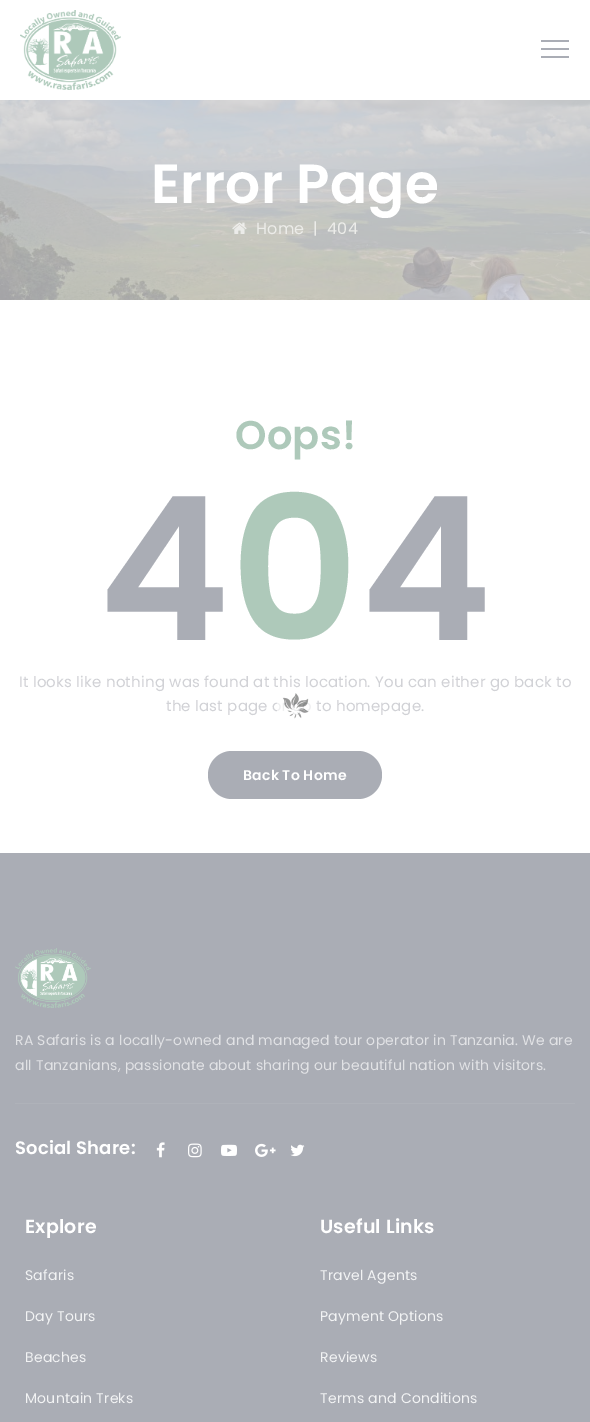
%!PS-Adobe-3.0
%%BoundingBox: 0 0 590 1422
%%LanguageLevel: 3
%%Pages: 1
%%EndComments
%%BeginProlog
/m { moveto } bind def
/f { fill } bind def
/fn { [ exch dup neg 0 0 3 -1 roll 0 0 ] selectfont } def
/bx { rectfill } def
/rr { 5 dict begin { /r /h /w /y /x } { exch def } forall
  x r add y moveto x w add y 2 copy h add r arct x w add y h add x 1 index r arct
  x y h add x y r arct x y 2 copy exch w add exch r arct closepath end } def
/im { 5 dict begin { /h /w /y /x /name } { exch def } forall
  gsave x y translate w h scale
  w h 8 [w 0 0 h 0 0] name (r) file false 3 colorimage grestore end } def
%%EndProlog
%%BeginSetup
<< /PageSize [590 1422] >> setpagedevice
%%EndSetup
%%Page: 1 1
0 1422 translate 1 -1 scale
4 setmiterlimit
1 setgray
0 0 590 1422 bx
(image0.raw) 20 10 101 80 im
0.667 0.678 0.71 setrgbcolor
541 48 28 2 bx
541 40 28 2 bx
541 56 28 2 bx
(image1.raw) 0 100 590 200 im
/Poppins-SemiBold 55 fn
1 setgray
151 203 m 0.2 0 (Error Page) ashow
(image2.raw) 232 222 15 12 im
/Poppins-Regular 16 fn
0.925 0.925 0.914 setrgbcolor
256 234 m 0.2 0 (Home) ashow
313 234 m 0.2 0 (|) ashow
327 234 m 0.2 0 (404) ashow
/Poppins-SemiBold 40 fn
0.682 0.788 0.729 setrgbcolor
235 449 m 0.2 0 (Oops!) ashow
/Poppins-SemiBold 200 fn
0.667 0.678 0.71 setrgbcolor
98 640 m 0.2 0 (4) ashow
0.682 0.788 0.729 setrgbcolor
230 640 m 0.2 0 (0) ashow
0.667 0.678 0.71 setrgbcolor
360 640 m 0.2 0 (4) ashow
/Poppins-Regular 15 fn
0.82 0.824 0.839 setrgbcolor
19 687 m 0.2 0 (It looks like nothing was found at this location. You can either go back to) ashow
166 711 m 0.2 0 (the last page or go to homepage.) ashow
0.667 0.678 0.71 setrgbcolor
208 751 174 48 24 rr f
/Poppins-SemiBold 14 fn
1 setgray
243 780 m 0.2 0 (Back To Home) ashow
0.667 0.678 0.71 setrgbcolor
0 853 590 569 bx
(image3.raw) 15 948 76 60 im
/Poppins-Regular 14 fn
0.882 0.886 0.898 setrgbcolor
15 1045 m 0.2 0 (RA Safaris is a locally-owned and managed tour operator in Tanzania. We are) ashow
15 1070 m 0.2 0 (all Tanzanians, passionate about sharing our beautiful nation with visitors.) ashow
0.686 0.698 0.725 setrgbcolor
15 1103 560 1 bx
/Poppins-SemiBold 18 fn
1 setgray
15 1154 m 0.2 0 (Social Share:) ashow
(image4.raw) 156 1142 9 16 im
(image5.raw) 188 1143 14 15 im
(image6.raw) 221 1144 16 12 im
(image7.raw) 255 1143 21 14 im
(image8.raw) 290 1144 15 13 im
/Poppins-SemiBold 19 fn
25 1233 m 0.2 0 (Explore) ashow
/Poppins-Regular 14 fn
0.949 0.953 0.957 setrgbcolor
25 1280 m 0.2 0 (Safaris) ashow
25 1321 m 0.2 0 (Day Tours) ashow
25 1362 m 0.2 0 (Beaches) ashow
25 1403 m 0.2 0 (Mountain Treks) ashow
/Poppins-SemiBold 19 fn
1 setgray
320 1233 m 0.2 0 (Useful Links) ashow
/Poppins-Regular 14 fn
0.949 0.953 0.957 setrgbcolor
320 1280 m 0.2 0 (Travel Agents) ashow
320 1321 m 0.2 0 (Payment Options) ashow
320 1362 m 0.2 0 (Reviews) ashow
320 1403 m 0.2 0 (Terms and Conditions) ashow
(image9.raw) 277 693 34 26 im
showpage
%%EOF
